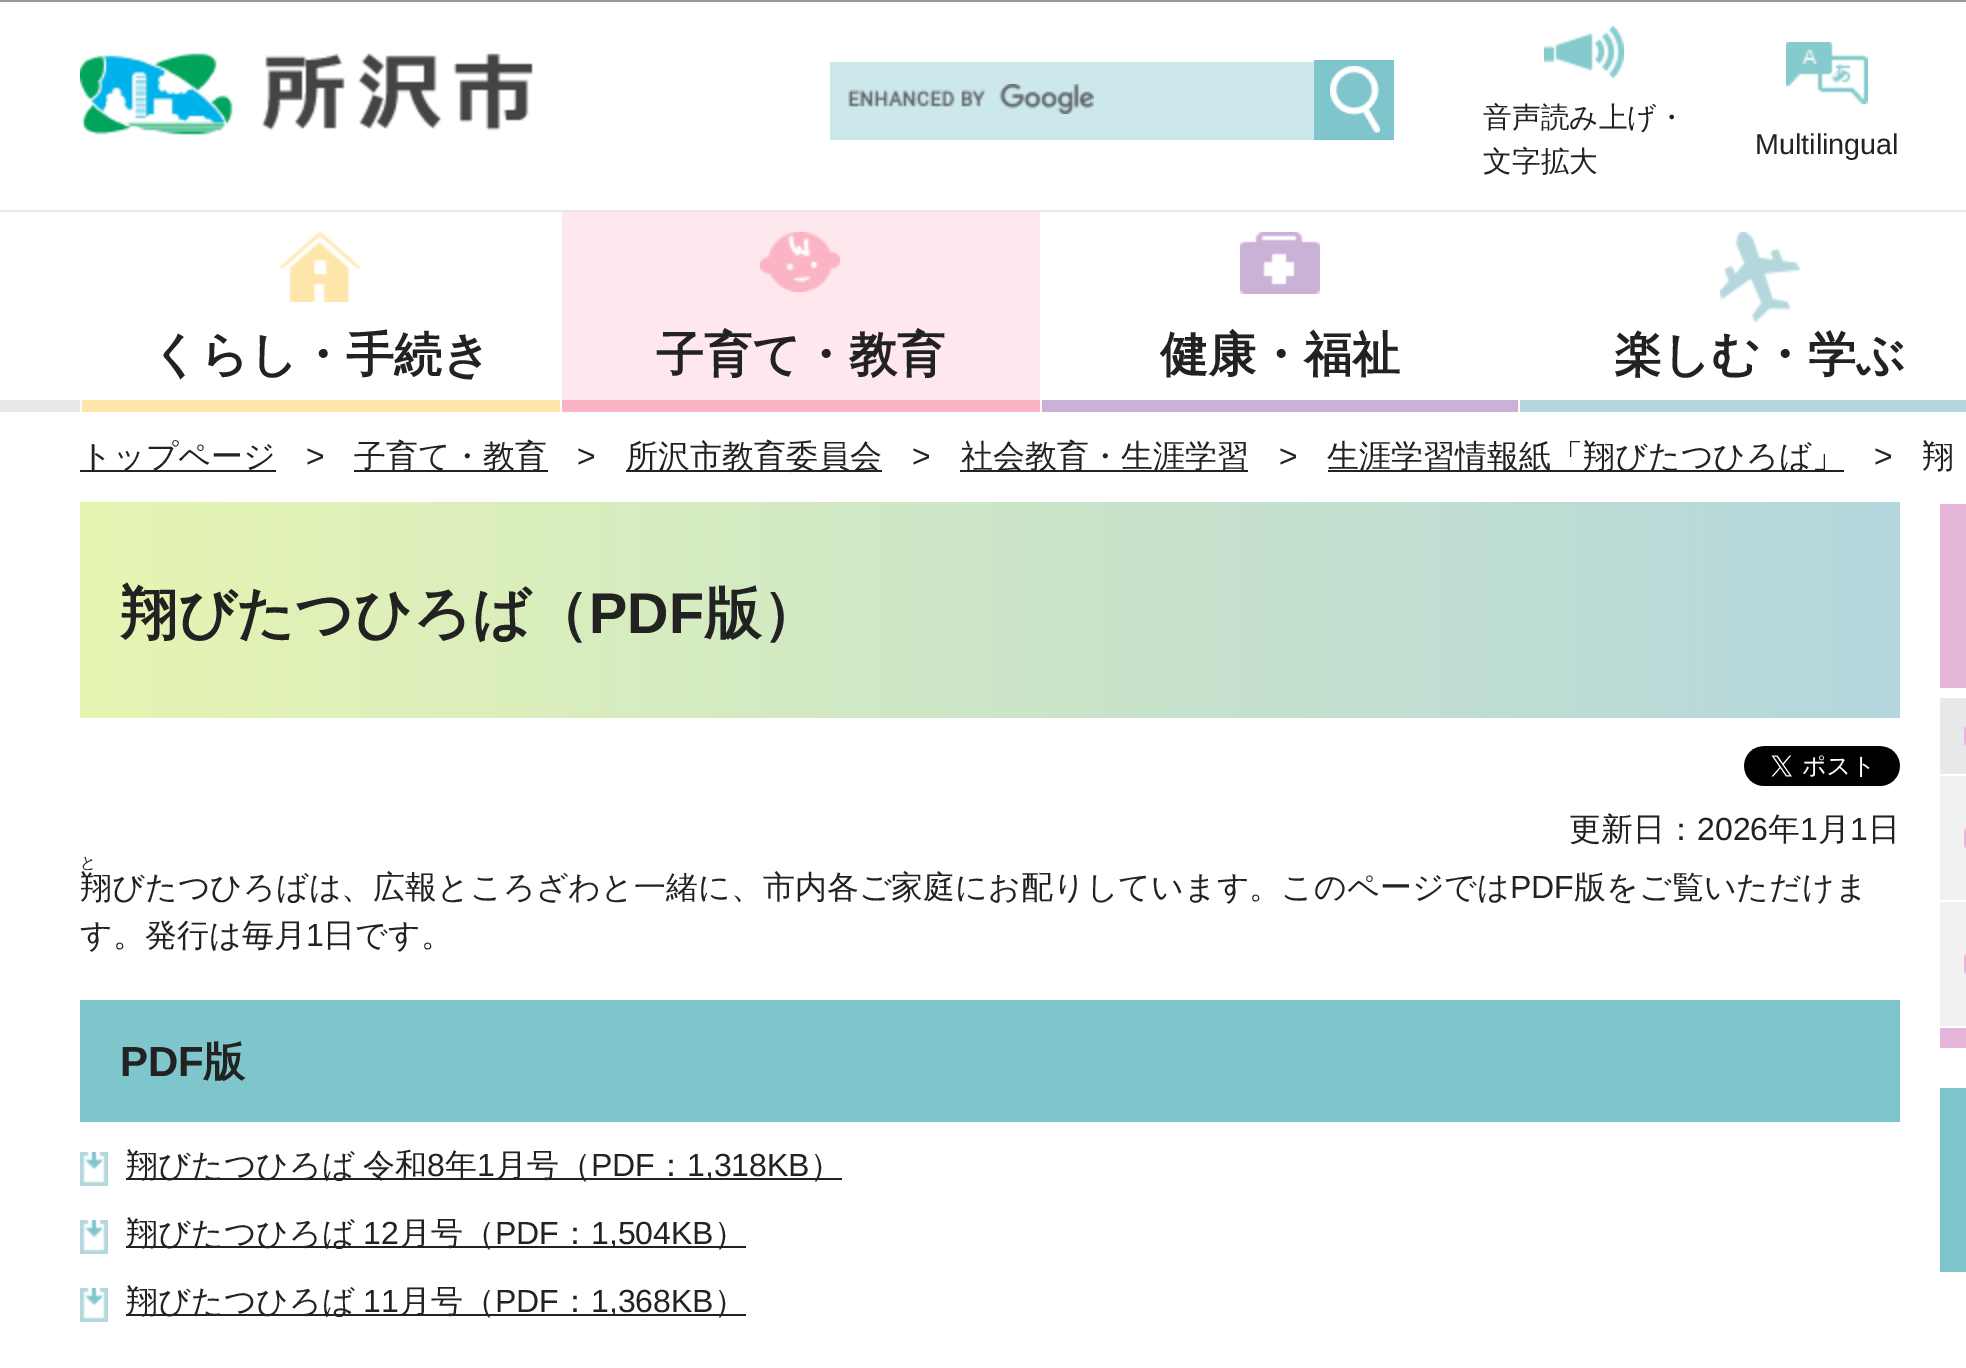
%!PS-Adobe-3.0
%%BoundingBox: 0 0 1966 1368
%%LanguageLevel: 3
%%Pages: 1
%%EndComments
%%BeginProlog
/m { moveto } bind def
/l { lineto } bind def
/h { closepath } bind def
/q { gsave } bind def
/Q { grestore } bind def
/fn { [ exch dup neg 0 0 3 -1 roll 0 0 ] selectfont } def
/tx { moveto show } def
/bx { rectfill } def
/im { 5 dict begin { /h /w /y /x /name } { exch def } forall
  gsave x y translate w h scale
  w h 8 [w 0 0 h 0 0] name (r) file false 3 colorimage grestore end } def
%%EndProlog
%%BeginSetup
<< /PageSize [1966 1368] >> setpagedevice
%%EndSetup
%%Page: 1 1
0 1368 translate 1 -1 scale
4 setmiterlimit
1 setgray
0 0 1966 1368 bx
0.6 setgray
0 0 1966 2 bx
0.91 setgray
0 210 1966 2 bx
(image0.raw) 80 53 453 82 im
0.8 0.91 0.922 setrgbcolor
830 62 484 78 bx
(image1.raw) 848 84 246 30 im
0.498 0.773 0.8 setrgbcolor
1314 60 80 80 bx
(image2.raw) 1330 66 50 67 im
(image3.raw) 1544 26 80 52 im
/WenQuanYiZenHei-Medium 28.75 fn
0.133 setgray
(音声読み上げ・) 1483 127 tx
(文字拡大) 1483 171 tx
(image4.raw) 1786 42 82 62 im
/LiberationSans-Regular 28.75 fn
(Multilingual) 1755 154 tx
0.91 setgray
0 400 80 12 bx
(image5.raw) 280 232 80 70 im
0.996 0.902 0.667 setrgbcolor
82 400 478 12 bx
/WenQuanYiZenHei-Bold 48 fn
0.133 setgray
(くらし・手続き) 151 371 tx
0.996 0.91 0.929 setrgbcolor
562 212 478 188 bx
(image6.raw) 760 232 80 60 im
0.984 0.706 0.769 setrgbcolor
562 400 478 12 bx
0.133 setgray
(子育て・教育) 656 371 tx
(image7.raw) 1240 232 80 62 im
0.792 0.698 0.839 setrgbcolor
1042 400 476 12 bx
0.133 setgray
(健康・福祉) 1160 371 tx
(image8.raw) 1720 232 80 90 im
0.702 0.843 0.867 setrgbcolor
1520 400 446 12 bx
0.133 setgray
(楽しむ・学ぶ) 1614 371 tx
80 470 196 2 bx
/WenQuanYiZenHei-Medium 32 fn
(トップページ) 80 467 tx
/LiberationSans-Regular 32 fn
(>) 306 467 tx
354 470 194 2 bx
/WenQuanYiZenHei-Medium 32 fn
(子育て・教育) 354 467 tx
/LiberationSans-Regular 32 fn
(>) 577 467 tx
626 470 256 2 bx
/WenQuanYiZenHei-Medium 32 fn
(所沢市教育委員会) 626 467 tx
/LiberationSans-Regular 32 fn
(>) 912 467 tx
960 470 288 2 bx
/WenQuanYiZenHei-Medium 32 fn
(社会教育・生涯学習) 961 467 tx
/LiberationSans-Regular 32 fn
(>) 1279 467 tx
1328 470 516 2 bx
/WenQuanYiZenHei-Medium 32 fn
(生涯学習情報紙「翔びたつひろば」) 1327 467 tx
/LiberationSans-Regular 32 fn
(>) 1874 467 tx
/WenQuanYiZenHei-Medium 32 fn
(翔) 1922 467 tx
q 80 502 m 1900 502 l 1900 718 l 80 718 l h clip newpath
<< /ShadingType 2 /ColorSpace /DeviceRGB /Coords [80 610 1900 610] /Extend [true true] /Function << /FunctionType 2 /Domain [0 1] /C0 [0.906 0.961 0.698] /C1 [0.702 0.843 0.867] /N 1 >> >> shfill Q
/WenQuanYiZenHei-Bold 57.5 fn
(翔びたつひろば（) 120 633 tx
/LiberationSans-Bold 57.5 fn
(PDF) 589 633 tx
/WenQuanYiZenHei-Bold 57.5 fn
(版）) 704 633 tx
(image9.raw) 1744 746 156 40 im
/WenQuanYiZenHei-Medium 32 fn
(更新日：) 1569 840 tx
/LiberationSans-Regular 32 fn
(2026) 1697 840 tx
/WenQuanYiZenHei-Medium 32 fn
(年) 1768 840 tx
/LiberationSans-Regular 32 fn
(1) 1800 840 tx
/WenQuanYiZenHei-Medium 32 fn
(月) 1818 840 tx
/LiberationSans-Regular 32 fn
(1) 1850 840 tx
/WenQuanYiZenHei-Medium 32 fn
(日) 1868 840 tx
/WenQuanYiZenHei-Medium 16 fn
(と) 80 868 tx
/WenQuanYiZenHei-Medium 32 fn
(翔びたつひろばは、広報ところざわと一緒に、市内各ご家庭にお配りしています。このページでは) 80 898 tx
/LiberationSans-Regular 32 fn
(PDF) 1510 898 tx
/WenQuanYiZenHei-Medium 32 fn
(版をご覧いただけま) 1574 898 tx
(す。発行は毎月) 80 946 tx
/LiberationSans-Regular 32 fn
(1) 306 946 tx
/WenQuanYiZenHei-Medium 32 fn
(日です。) 323 946 tx
0.498 0.773 0.8 setrgbcolor
80 1000 1820 122 bx
/LiberationSans-Bold 42 fn
0.133 setgray
(PDF) 120 1076 tx
/WenQuanYiZenHei-Bold 42 fn
(版) 203 1076 tx
(image10.raw) 80 1152 28 34 im
126 1178 716 2 bx
/WenQuanYiZenHei-Medium 32 fn
126 1176 m -1 0 32 (翔びたつひろば 令和) widthshow
/LiberationSans-Regular 32 fn
(8) 427 1176 tx
/WenQuanYiZenHei-Medium 32 fn
(年) 445 1176 tx
/LiberationSans-Regular 32 fn
(1) 477 1176 tx
/WenQuanYiZenHei-Medium 32 fn
(月号（) 495 1176 tx
/LiberationSans-Regular 32 fn
(PDF) 591 1176 tx
/WenQuanYiZenHei-Medium 32 fn
(：) 655 1176 tx
/LiberationSans-Regular 32 fn
(1,318KB) 687 1176 tx
/WenQuanYiZenHei-Medium 32 fn
(）) 810 1176 tx
(image10.raw) 80 1220 28 34 im
126 1246 620 2 bx
(翔びたつひろば) 126 1244 tx
/LiberationSans-Regular 32 fn
(12) 363 1244 tx
/WenQuanYiZenHei-Medium 32 fn
(月号（) 399 1244 tx
/LiberationSans-Regular 32 fn
(PDF) 495 1244 tx
/WenQuanYiZenHei-Medium 32 fn
(：) 559 1244 tx
/LiberationSans-Regular 32 fn
(1,504KB) 591 1244 tx
/WenQuanYiZenHei-Medium 32 fn
(）) 714 1244 tx
(image10.raw) 80 1288 28 34 im
126 1314 620 2 bx
(翔びたつひろば) 126 1312 tx
/LiberationSans-Regular 32 fn
(11) 363 1312 tx
/WenQuanYiZenHei-Medium 32 fn
(月号（) 399 1312 tx
/LiberationSans-Regular 32 fn
(PDF) 495 1312 tx
/WenQuanYiZenHei-Medium 32 fn
(：) 559 1312 tx
/LiberationSans-Regular 32 fn
(1,368KB) 591 1312 tx
/WenQuanYiZenHei-Medium 32 fn
(）) 714 1312 tx
0.902 0.714 0.855 setrgbcolor
1940 504 26 184 bx
0.91 setgray
1940 698 26 76 bx
(image11.raw) 1964 726 2 20 im
0.945 setgray
1940 776 26 124 bx
(image12.raw) 1964 828 2 20 im
0.902 0.714 0.855 setrgbcolor
1940 1028 26 20 bx
0.945 setgray
1940 902 26 124 bx
(image12.raw) 1964 954 2 20 im
0.498 0.773 0.8 setrgbcolor
1940 1088 26 184 bx
showpage
%%EOF
